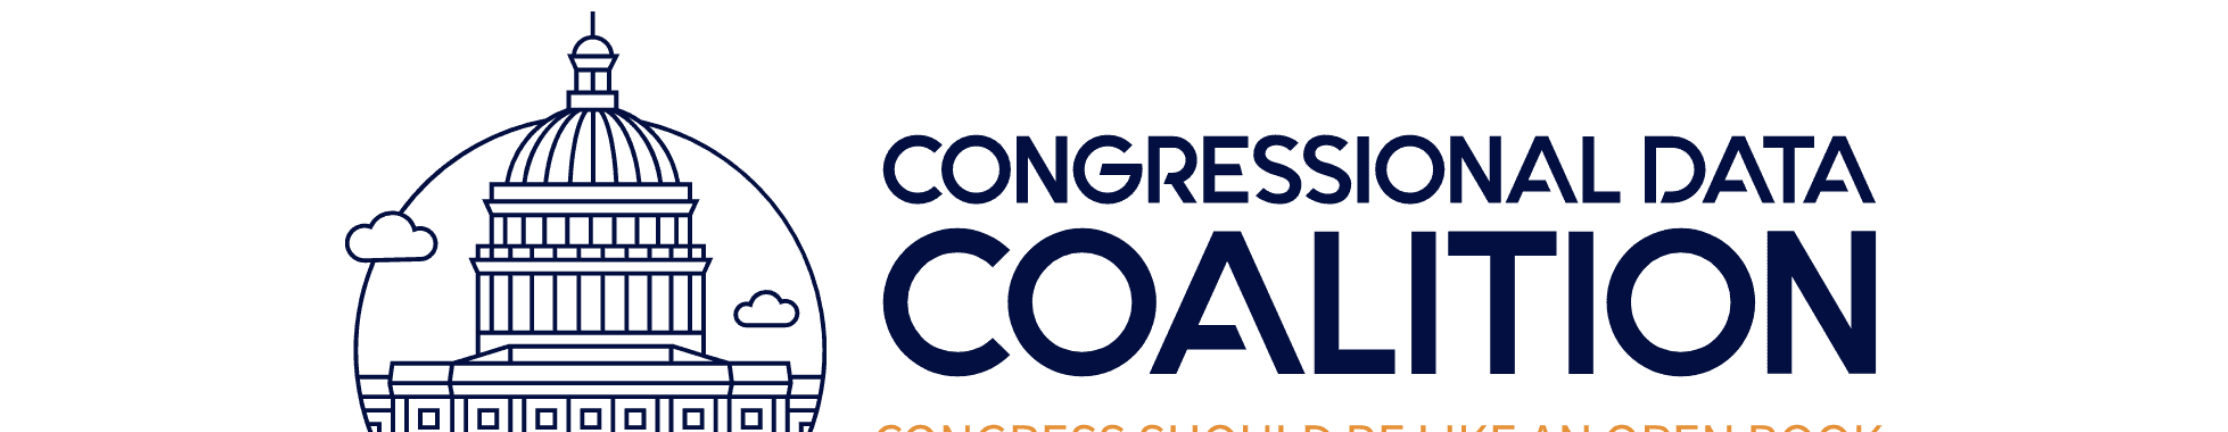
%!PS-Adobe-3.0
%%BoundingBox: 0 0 2228 432
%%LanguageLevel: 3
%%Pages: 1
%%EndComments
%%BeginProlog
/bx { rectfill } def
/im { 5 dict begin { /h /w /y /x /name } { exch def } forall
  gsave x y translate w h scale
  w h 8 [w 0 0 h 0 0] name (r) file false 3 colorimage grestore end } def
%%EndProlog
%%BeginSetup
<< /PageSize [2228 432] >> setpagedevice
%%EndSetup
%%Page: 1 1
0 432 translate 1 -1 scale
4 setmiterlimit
1 setgray
0 0 2228 432 bx
(image0.raw) 345 11 1538 421 im
showpage
%%EOF
